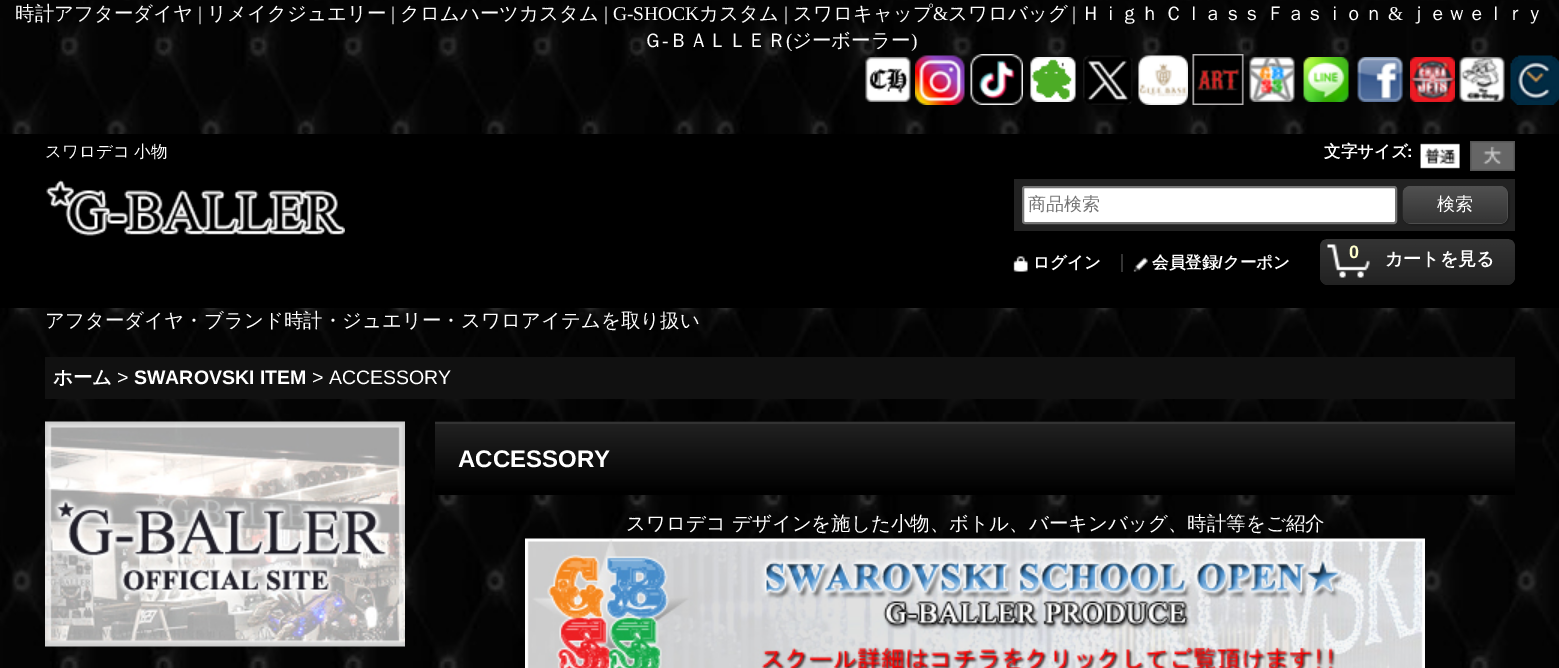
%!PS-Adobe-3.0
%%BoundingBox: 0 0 1559 668
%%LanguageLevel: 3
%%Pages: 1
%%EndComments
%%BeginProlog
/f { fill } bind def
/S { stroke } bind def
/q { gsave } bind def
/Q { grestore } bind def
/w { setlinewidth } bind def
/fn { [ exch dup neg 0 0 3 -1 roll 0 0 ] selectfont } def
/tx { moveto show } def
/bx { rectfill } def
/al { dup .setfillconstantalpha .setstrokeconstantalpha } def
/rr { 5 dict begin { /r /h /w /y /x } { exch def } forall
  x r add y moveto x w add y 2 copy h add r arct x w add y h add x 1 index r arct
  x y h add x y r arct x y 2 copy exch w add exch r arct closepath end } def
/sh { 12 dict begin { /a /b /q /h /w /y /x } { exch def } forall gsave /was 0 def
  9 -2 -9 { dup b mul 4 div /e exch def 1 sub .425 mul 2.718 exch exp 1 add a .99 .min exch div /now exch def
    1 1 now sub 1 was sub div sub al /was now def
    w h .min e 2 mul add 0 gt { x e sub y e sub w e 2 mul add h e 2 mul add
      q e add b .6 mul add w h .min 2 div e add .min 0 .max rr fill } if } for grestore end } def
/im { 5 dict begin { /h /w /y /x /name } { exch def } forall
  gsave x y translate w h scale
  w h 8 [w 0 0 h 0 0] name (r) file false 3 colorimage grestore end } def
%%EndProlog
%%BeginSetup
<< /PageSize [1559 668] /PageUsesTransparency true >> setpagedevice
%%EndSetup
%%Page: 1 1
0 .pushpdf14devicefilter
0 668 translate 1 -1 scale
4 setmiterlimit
1 setgray
0 0 1559 668 bx
(image0.raw) 0 0 1559 668 im
/WenQuanYiZenHei-Medium 19.5 fn
(時計アフターダイヤ) 15 20 tx
/LiberationSerif-Regular 19.5 fn
(|) 198 20 tx
/WenQuanYiZenHei-Medium 19.5 fn
(リメイクジュエリー) 207 20 tx
/LiberationSerif-Regular 19.5 fn
(|) 391 20 tx
/WenQuanYiZenHei-Medium 19.5 fn
(クロムハーツカスタム) 400 20 tx
/LiberationSerif-Regular 19.5 fn
(| G-SHOCK) 604 20 tx
/WenQuanYiZenHei-Medium 19.5 fn
(カスタム) 699 20 tx
/LiberationSerif-Regular 19.5 fn
(|) 784 20 tx
/WenQuanYiZenHei-Medium 19.5 fn
(スワロキャップ) 793 20 tx
/LiberationSerif-Regular 19.5 fn
(&) 933 20 tx
/WenQuanYiZenHei-Medium 19.5 fn
(スワロバッグ) 948 20 tx
/LiberationSerif-Regular 19.5 fn
(|) 1072 20 tx
/WenQuanYiZenHei-Medium 19.5 fn
(Ｈｉｇｈ) 1081 20 tx
(Ｃｌａｓｓ) 1164 20 tx
(Ｆａｓｉｏｎ) 1266 20 tx
/LiberationSerif-Regular 19.5 fn
(&) 1388 20 tx
/WenQuanYiZenHei-Medium 19.5 fn
(ｊｅｗｅｌｒｙ) 1408 20 tx
(Ｇ) 643 47 tx
/LiberationSerif-Regular 19.5 fn
(-) 662 47 tx
/WenQuanYiZenHei-Medium 19.5 fn
(ＢＡＬＬＥＲ) 669 47 tx
/LiberationSerif-Regular 19.5 fn
(\() 786 47 tx
/WenQuanYiZenHei-Medium 19.5 fn
(ジーボーラー) 792 47 tx
/LiberationSerif-Regular 19.5 fn
(\)) 911 47 tx
(image1.raw) 865 57 46 45 im
(image2.raw) 915 55 50 50 im
(image3.raw) 970 54 53 51 im
(image4.raw) 1030 57 46 45 im
(image5.raw) 1083 55 50 50 im
(image6.raw) 1138 55 50 50 im
(image7.raw) 1192 54 52 51 im
(image8.raw) 1249 57 46 45 im
(image9.raw) 1303 57 46 45 im
(image10.raw) 1357 57 47 45 im
(image11.raw) 1410 57 45 45 im
(image12.raw) 1459 57 46 45 im
(image13.raw) 1510 55 49 50 im
0 setgray
0 134 1559 174 bx
/WenQuanYiZenHei-Medium 16.5 fn
1 setgray
(スワロデコ 小物) 45 157 tx
/WenQuanYiZenHei-Bold 16.5 fn
(文字サイズ) 1324 157 tx
/LiberationSans-Bold 16.5 fn
(:) 1407 157 tx
(image14.raw) 1420 143 40 26 im
(image15.raw) 1470 141 45 30 im
(image16.raw) 46 179 299 57 im
0.133 setgray
1014 179 501 52 bx
1 setgray
1023 187 373 36 2 rr q f Q
0.463 setgray
2 w
S
/WenQuanYiZenHei-Medium 18 fn
0.459 setgray
(商品検索) 1028 210 tx
0 setgray
1404 188 105 37 8 1.5 0.3 sh
0.333 setgray
1403 186 105 38 8 rr f
(image17.raw) 1402 186 106 38 im
1 setgray
(検索) 1437 210 tx
(image18.raw) 1013 256 15 16 im
/WenQuanYiZenHei-Bold 16.5 fn
(ログイン) 1033 268 tx
0.2 setgray
1121 254 2 18 bx
(image19.raw) 1133 257 15 15 im
1 setgray
(会員登録) 1152 268 tx
/LiberationSans-Bold 16.5 fn
(/) 1218 268 tx
/WenQuanYiZenHei-Bold 16.5 fn
(クーポン) 1223 268 tx
0.2 setgray
1320 239 195 46 8 rr f
(image20.raw) 1320 240 195 45 im
(image21.raw) 1327 244 43 34 im
/LiberationSans-Bold 18 fn
1 1 0.8 setrgbcolor
(0) 1349 258 tx
/WenQuanYiZenHei-Bold 18 fn
1 setgray
(カートを見る) 1385 265 tx
/WenQuanYiZenHei-Medium 19.5 fn
(アフターダイヤ・ブランド時計・ジュエリー・スワロアイテムを取り扱い) 45 327 tx
0.067 setgray
45 357 1470 42 bx
/WenQuanYiZenHei-Bold 19.5 fn
1 setgray
(ホーム) 53 384 tx
/LiberationSans-Regular 19.5 fn
(>) 117 384 tx
/LiberationSans-Bold 19.5 fn
(SWAROVSKI ITEM) 134 384 tx
/LiberationSans-Regular 19.5 fn
(> ACCESSORY) 312 384 tx
(image22.raw) 45 421 360 226 im
(image23.raw) 435 421 1080 74 im
0.2 setgray
435 422 1080 2 bx
/LiberationSans-Bold 24 fn
1 setgray
(ACCESSORY) 458 467 tx
/WenQuanYiZenHei-Medium 19.5 fn
(スワロデコ デザインを施した小物、ボトル、バーキンバッグ、時計等をご紹介) 626 530 tx
(image24.raw) 525 538 900 130 im
.poppdf14devicefilter showpage
%%EOF
